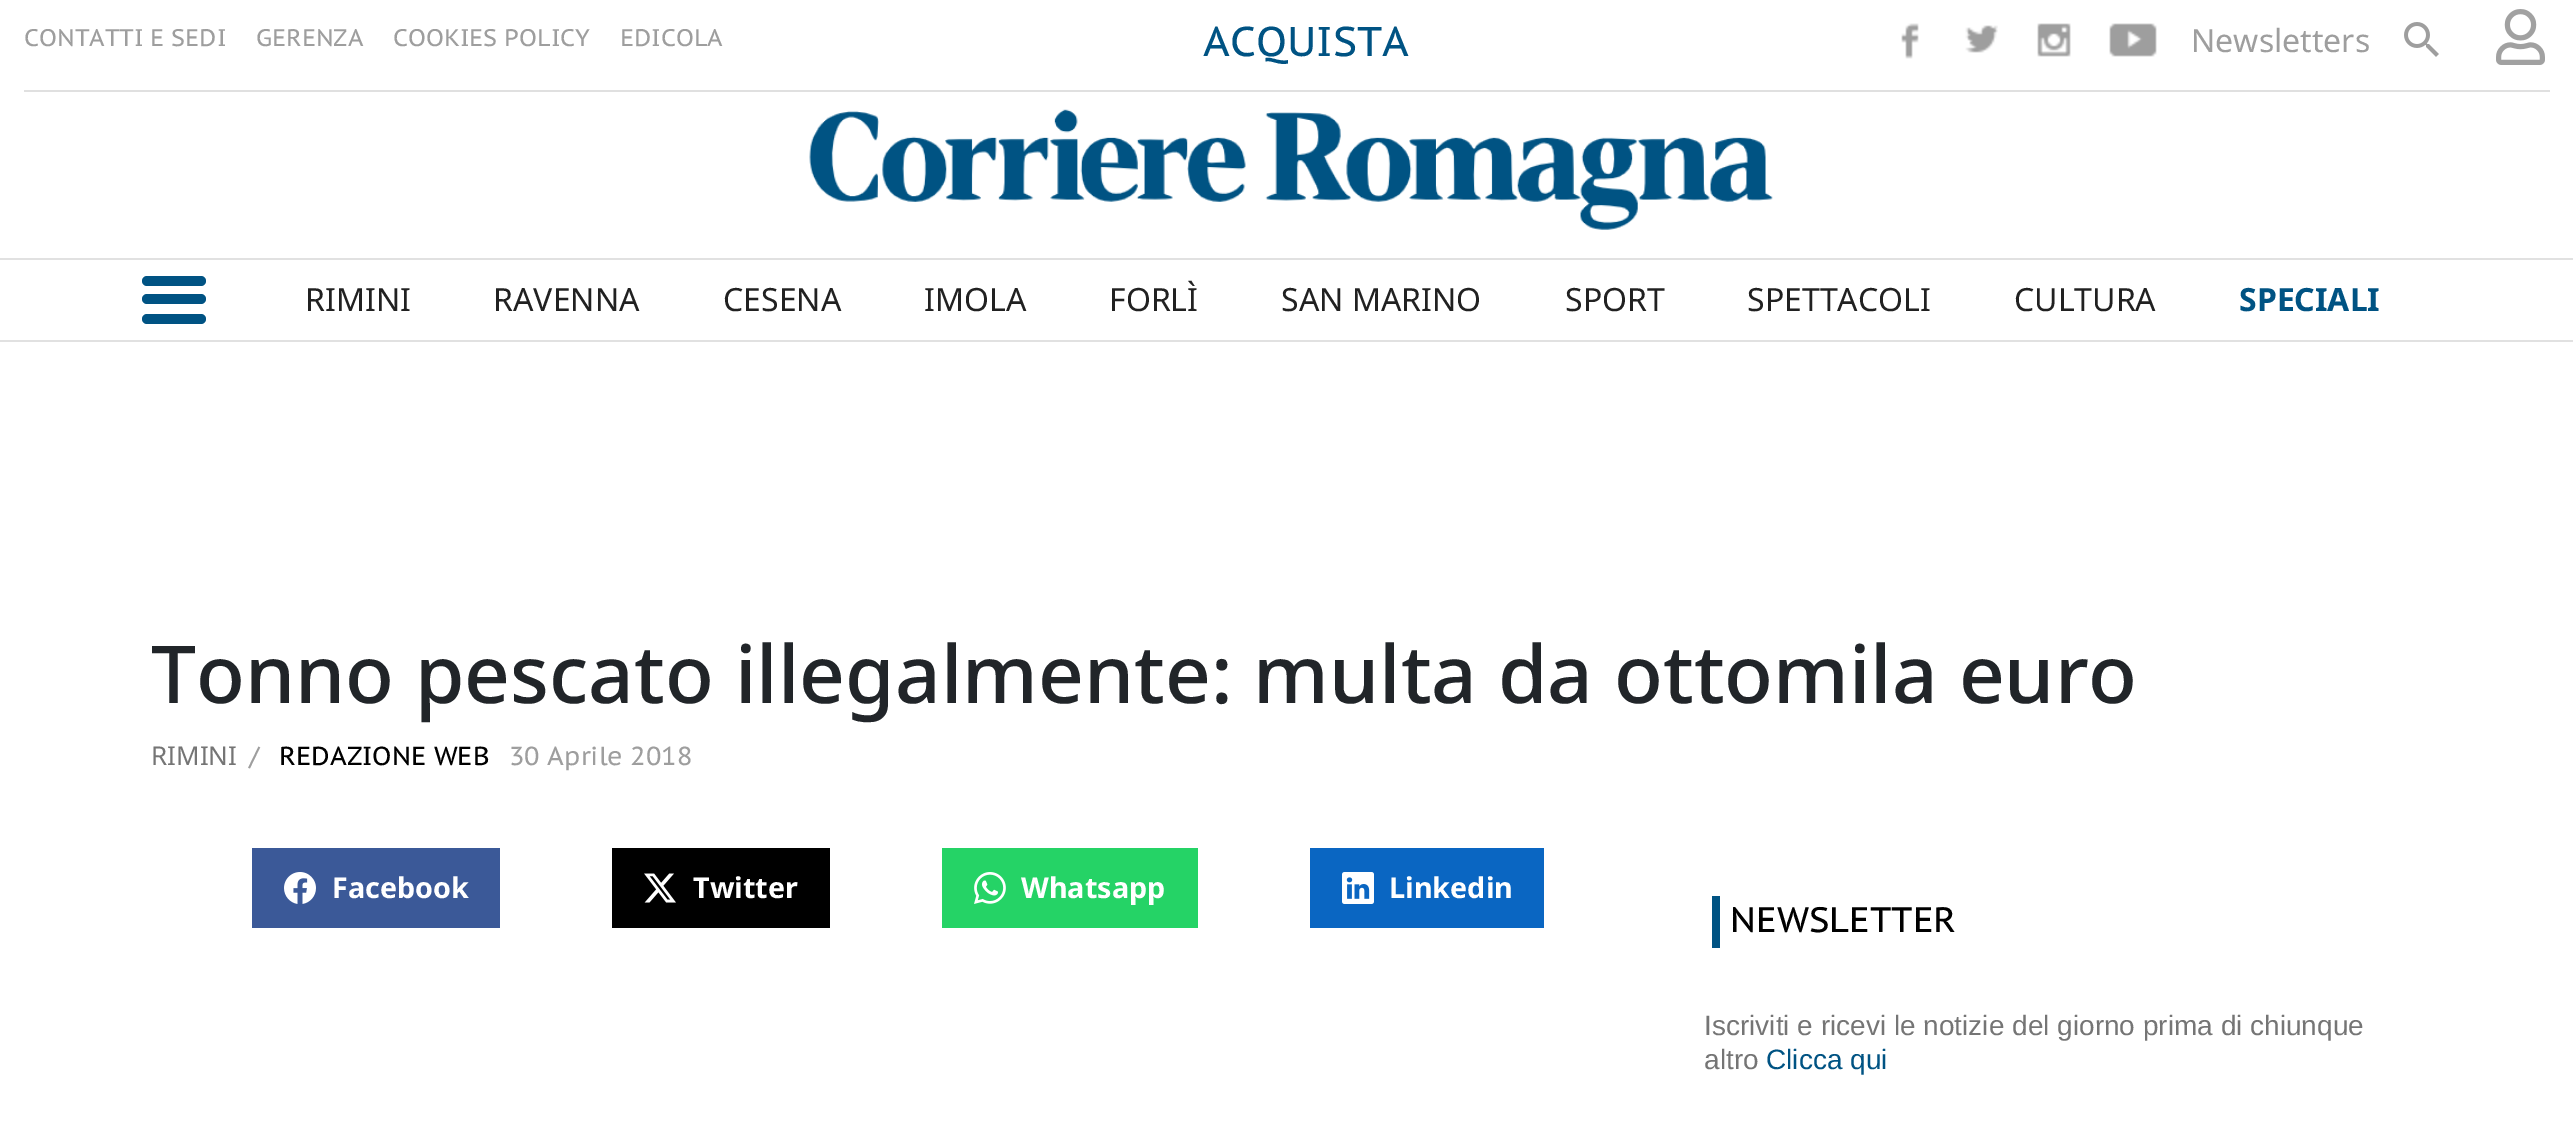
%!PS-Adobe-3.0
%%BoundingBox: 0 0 2573 1137
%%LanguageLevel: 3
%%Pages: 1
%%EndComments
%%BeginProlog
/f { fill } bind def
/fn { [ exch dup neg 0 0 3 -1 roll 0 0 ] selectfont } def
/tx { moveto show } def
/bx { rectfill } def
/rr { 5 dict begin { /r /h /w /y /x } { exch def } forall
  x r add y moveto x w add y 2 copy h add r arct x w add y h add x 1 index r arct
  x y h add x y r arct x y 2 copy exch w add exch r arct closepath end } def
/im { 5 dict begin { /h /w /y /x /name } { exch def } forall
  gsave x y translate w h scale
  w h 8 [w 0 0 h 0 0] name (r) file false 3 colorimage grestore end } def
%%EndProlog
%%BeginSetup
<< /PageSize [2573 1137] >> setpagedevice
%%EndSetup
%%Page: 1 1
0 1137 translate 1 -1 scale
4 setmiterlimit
1 setgray
0 0 2573 1137 bx
/PTSansCaption-Regular 24 fn
0.62 setgray
(CONTATTI E SEDI) 24 46 tx
(GERENZA) 256 46 tx
(COOKIES POLICY) 393 46 tx
(EDICOLA) 620 46 tx
/PTSansCaption-Regular 41.5 fn
0 0.325 0.514 setrgbcolor
(ACQUISTA) 1203 56 tx
(image0.raw) 1901 23 18 36 im
(image1.raw) 1965 25 33 28 im
(image2.raw) 2037 23 34 34 im
(image3.raw) 2109 23 48 34 im
/NotoSans-Regular 32 fn
0.62 setgray
(Newsletters) 2191 52 tx
(image4.raw) 2404 22 35 35 im
(image5.raw) 2496 9 49 56 im
0.878 setgray
24 90 2526 2 bx
(image6.raw) 809 109 964 121 im
0.882 setgray
0 258 2573 2 bx
0 340 2573 2 bx
0 0.325 0.514 setrgbcolor
142 276 64 10 5 rr f
142 294 64 10 5 rr f
142 314 64 10 5 rr f
0.129 setgray
(RIMINI) 305 311 tx
(RAVENNA) 493 311 tx
(CESENA) 723 311 tx
(IMOLA) 924 311 tx
(FORLÌ) 1109 311 tx
(SAN MARINO) 1281 311 tx
(SPORT) 1565 311 tx
(SPETTACOLI) 1747 311 tx
(CULTURA) 2014 311 tx
/NotoSans-Bold 32 fn
0 0.325 0.514 setrgbcolor
(SPECIALI) 2239 311 tx
/NotoSans-Medium 80 fn
0.129 0.145 0.161 setrgbcolor
(Tonno pescato illegalmente: multa da ottomila euro) 151 703 tx
/NotoSans-Regular 26 fn
0.459 setgray
(RIMINI) 151 765 tx
/PTSansCaption-Regular 26 fn
0.62 setgray
(/) 249 765 tx
0 setgray
(REDAZIONE WEB) 279 765 tx
0.62 setgray
(30 Aprile 2018) 509 765 tx
0.231 0.349 0.596 setrgbcolor
252 848 248 80 bx
(image7.raw) 284 872 32 32 im
/NotoSans-Bold 28.75 fn
1 setgray
(Facebook) 332 898 tx
0 setgray
612 848 218 80 bx
(image8.raw) 644 873 32 30 im
1 setgray
(Twitter) 693 898 tx
0.145 0.827 0.4 setrgbcolor
942 848 256 80 bx
(image9.raw) 974 872 32 32 im
1 setgray
(Whatsapp) 1021 898 tx
0.039 0.4 0.761 setrgbcolor
1310 848 234 80 bx
(image10.raw) 1342 872 32 32 im
1 setgray
(Linkedin) 1389 898 tx
0 0.325 0.514 setrgbcolor
1712 896 8 52 bx
/PTSansCaption-Regular 35.25 fn
0 setgray
(NEWSLETTER) 1730 932 tx
/LiberationSans-Regular 28 fn
0.459 setgray
(Iscriviti e ricevi le notizie del giorno prima di chiunque) 1704 1035 tx
(altro) 1704 1069 tx
0 0.325 0.514 setrgbcolor
(Clicca qui) 1766 1069 tx
showpage
%%EOF
